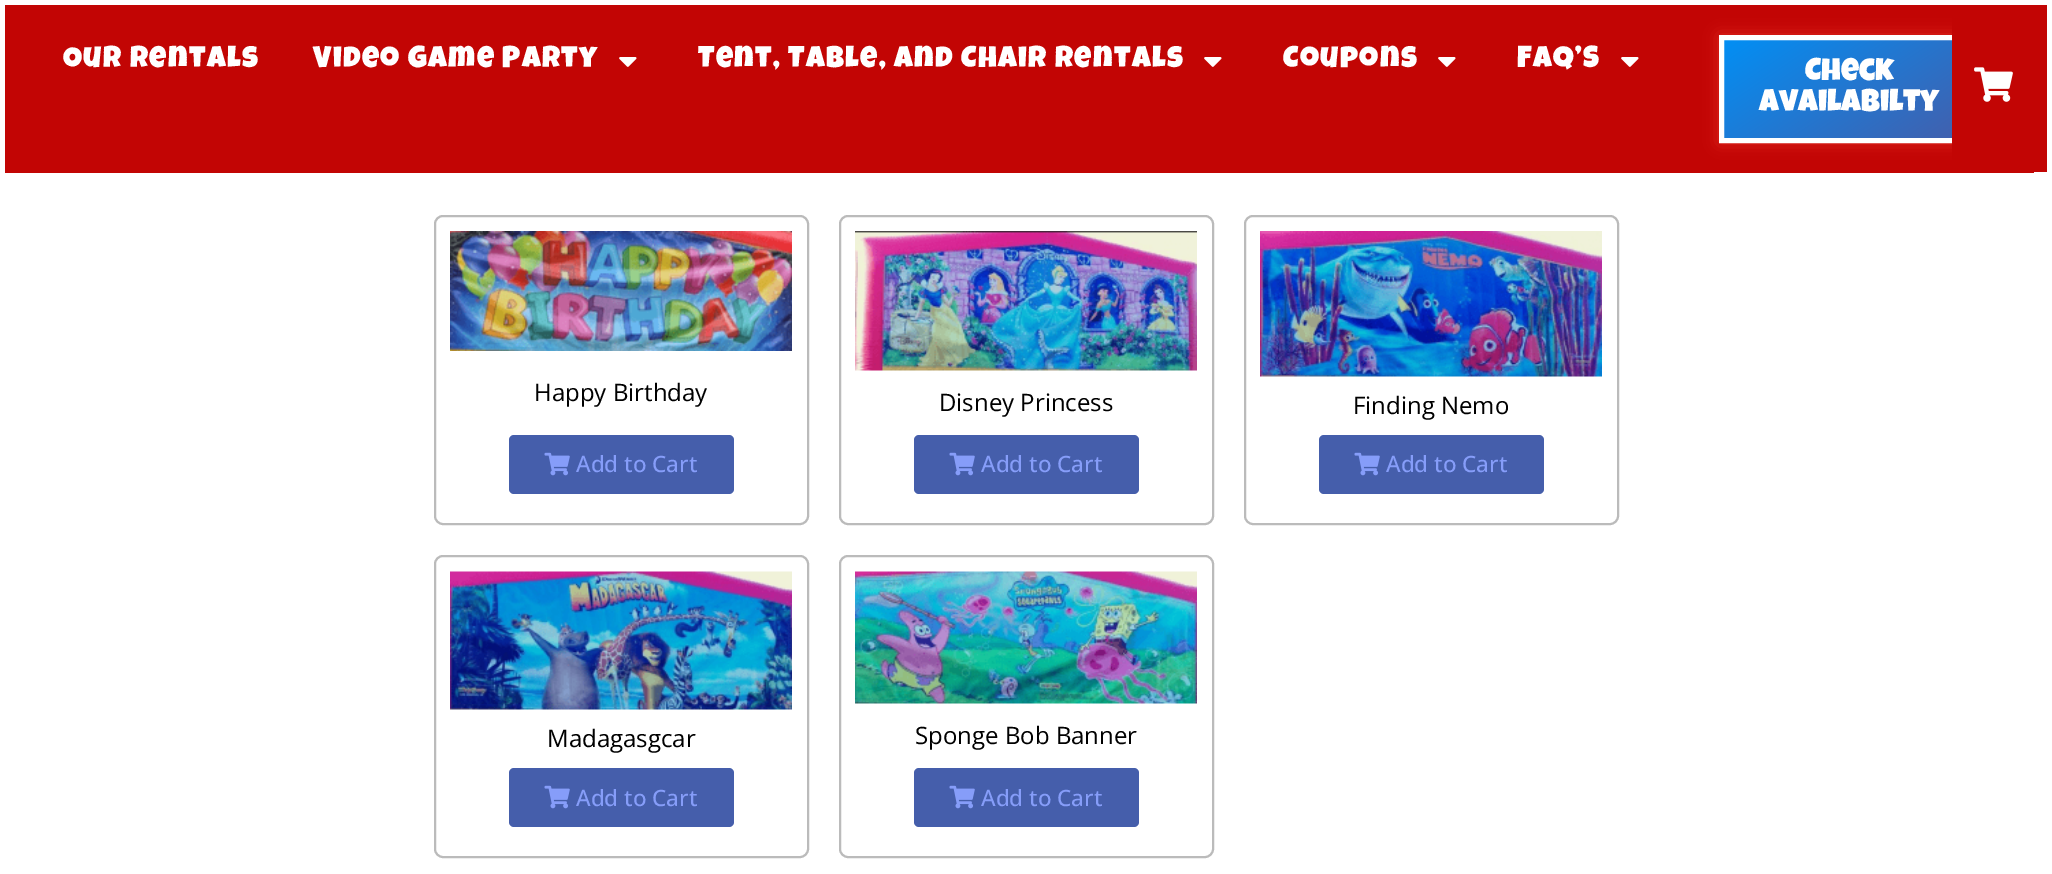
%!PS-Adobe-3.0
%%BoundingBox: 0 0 2052 874
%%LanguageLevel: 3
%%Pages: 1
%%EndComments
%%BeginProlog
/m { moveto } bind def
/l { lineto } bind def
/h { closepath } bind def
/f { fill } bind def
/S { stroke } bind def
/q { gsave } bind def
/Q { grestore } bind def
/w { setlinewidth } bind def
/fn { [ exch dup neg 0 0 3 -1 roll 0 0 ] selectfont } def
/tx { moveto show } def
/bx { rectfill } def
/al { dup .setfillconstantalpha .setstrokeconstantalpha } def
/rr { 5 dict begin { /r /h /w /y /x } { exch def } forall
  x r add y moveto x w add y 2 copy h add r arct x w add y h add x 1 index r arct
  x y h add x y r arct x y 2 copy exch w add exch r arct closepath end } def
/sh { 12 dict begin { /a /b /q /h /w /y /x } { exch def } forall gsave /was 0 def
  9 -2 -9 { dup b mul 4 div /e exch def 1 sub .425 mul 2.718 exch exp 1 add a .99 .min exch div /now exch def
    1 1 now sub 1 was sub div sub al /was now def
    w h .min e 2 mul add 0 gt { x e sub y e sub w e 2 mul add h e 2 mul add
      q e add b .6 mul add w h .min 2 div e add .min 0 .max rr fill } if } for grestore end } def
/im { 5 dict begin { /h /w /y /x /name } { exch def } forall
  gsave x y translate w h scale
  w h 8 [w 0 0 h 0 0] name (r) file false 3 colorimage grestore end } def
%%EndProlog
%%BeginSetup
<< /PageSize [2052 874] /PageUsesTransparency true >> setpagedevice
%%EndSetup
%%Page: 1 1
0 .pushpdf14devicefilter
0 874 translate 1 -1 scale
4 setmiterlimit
1 setgray
0 0 2052 874 bx
0.761 0.02 0.016 setrgbcolor
2034 5 13 167 bx
5 5 1947 168 bx
/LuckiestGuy-Regular 30 fn
1 setgray
63 67 m 1.35 0 (Our Rentals) ashow
313 67 m 1.35 0 (Video Game Party) ashow
(image0.raw) 619 57 18 10 im
698 67 m 1.35 0 (Tent, Table, and Chair Rentals) ashow
(image0.raw) 1204 57 18 10 im
1283 67 m 1.35 0 (Coupons) ashow
(image0.raw) 1438 57 18 10 im
1517 67 m 1.35 0 (FAQ’S) ashow
(image0.raw) 1621 57 18 10 im
0.89 0.161 0.125 setrgbcolor
1719 35 261 108 0 7.5 0.92 sh
q 1724 40 m 1952 40 l 1952 138 l 1724 138 l h clip newpath
<< /ShadingType 2 /ColorSpace /DeviceRGB /Coords [1787 -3.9 1912 181] /Extend [true true] /Function << /FunctionType 2 /Domain [0 1] /C0 [0.008 0.561 0.957] /C1 [0.271 0.369 0.671] /N 1 >> >> shfill Q
1 setgray
5 w
1721.5 37.5 256 103 rectstroke
/LuckiestGuy-Regular 31.5 fn
(Check) 1805 80 tx
(Availabilty) 1759 111 tx
0.761 0.02 0.016 setrgbcolor
1952 5 82 168 bx
(image1.raw) 1974 67 39 35 im
0.733 setgray
2 w
435 216 373 308 8 rr S
(image2.raw) 450 231 342 120 im
/OpenSans-Regular 24 fn
0 setgray
(Happy Birthday) 534 401 tx
0.271 0.369 0.671 setrgbcolor
509 435 225 59 5 rr f
(image3.raw) 544 452 26 24 im
/OpenSans-Medium 22.5 fn
0.525 0.616 0.976 setrgbcolor
(Add to Cart) 576 472 tx
0.733 setgray
840 216 373 308 8 rr S
(image4.raw) 855 231 342 140 im
/OpenSans-Regular 24 fn
0 setgray
(Disney Princess) 939 411 tx
0.271 0.369 0.671 setrgbcolor
914 435 225 59 5 rr f
(image3.raw) 949 452 26 24 im
/OpenSans-Medium 22.5 fn
0.525 0.616 0.976 setrgbcolor
(Add to Cart) 981 472 tx
0.733 setgray
1245 216 373 308 8 rr S
(image5.raw) 1260 231 342 146 im
/OpenSans-Regular 24 fn
0 setgray
(Finding Nemo) 1353 414 tx
0.271 0.369 0.671 setrgbcolor
1319 435 225 59 5 rr f
(image3.raw) 1354 452 26 24 im
/OpenSans-Medium 22.5 fn
0.525 0.616 0.976 setrgbcolor
(Add to Cart) 1386 472 tx
0.733 setgray
435 556 373 301 8 rr S
(image6.raw) 450 571 342 139 im
/OpenSans-Regular 24 fn
0 setgray
(Madagasgcar) 547 747 tx
0.271 0.369 0.671 setrgbcolor
509 768 225 59 5 rr f
(image3.raw) 544 785 26 24 im
/OpenSans-Medium 22.5 fn
0.525 0.616 0.976 setrgbcolor
(Add to Cart) 576 806 tx
0.733 setgray
840 556 373 301 8 rr S
(image7.raw) 855 571 342 133 im
/OpenSans-Regular 24 fn
0 setgray
(Sponge Bob Banner) 915 744 tx
0.271 0.369 0.671 setrgbcolor
914 768 225 59 5 rr f
(image3.raw) 949 785 26 24 im
/OpenSans-Medium 22.5 fn
0.525 0.616 0.976 setrgbcolor
(Add to Cart) 981 806 tx
.poppdf14devicefilter showpage
%%EOF
